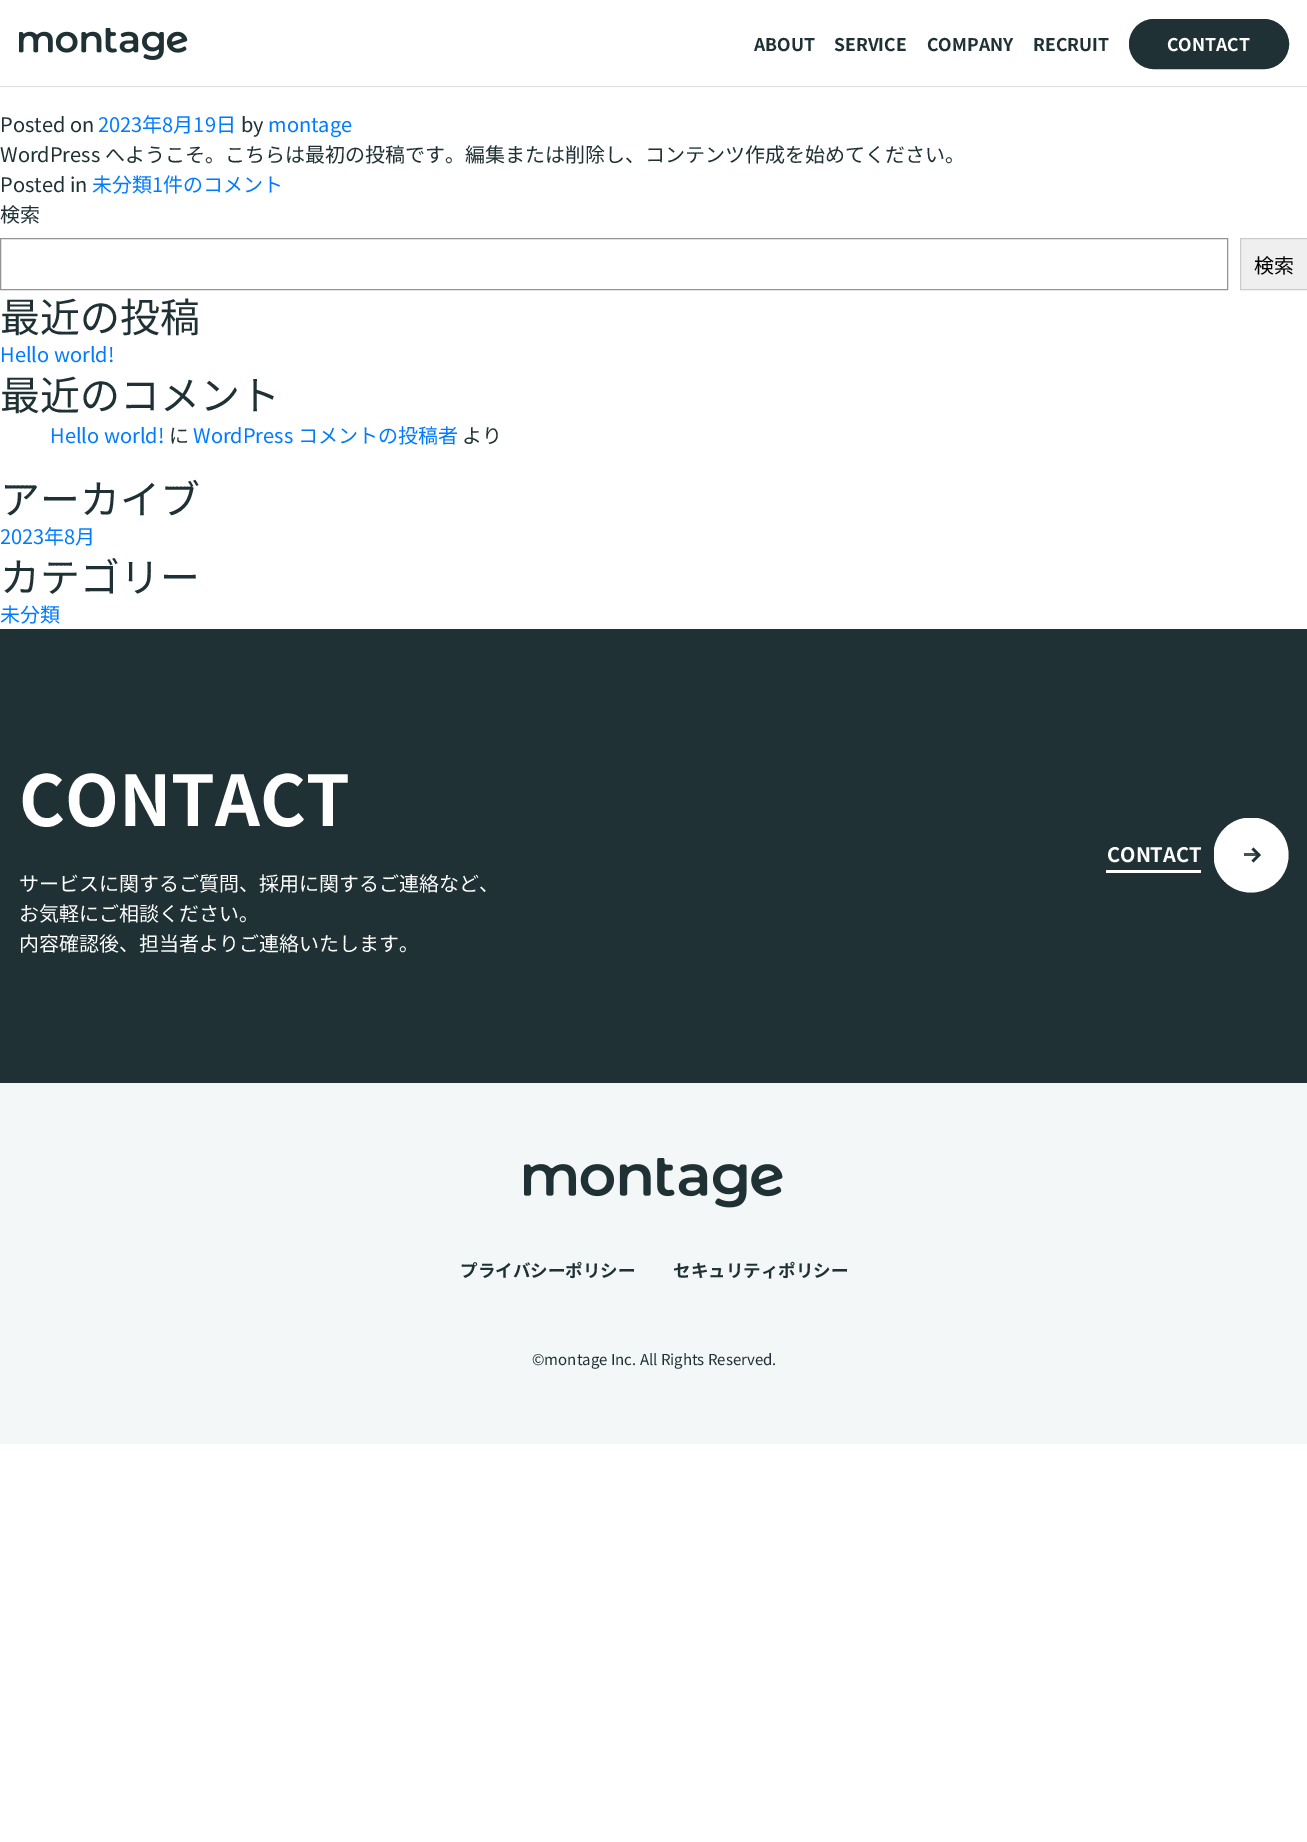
%!PS-Adobe-3.0
%%BoundingBox: 0 0 1307 1842
%%LanguageLevel: 3
%%Pages: 1
%%EndComments
%%BeginProlog
/m { moveto } bind def
/l { lineto } bind def
/h { closepath } bind def
/f { fill } bind def
/S { stroke } bind def
/q { gsave } bind def
/Q { grestore } bind def
/w { setlinewidth } bind def
/fn { [ exch dup neg 0 0 3 -1 roll 0 0 ] selectfont } def
/tx { moveto show } def
/bx { rectfill } def
/al { dup .setfillconstantalpha .setstrokeconstantalpha } def
/ci { newpath 0 360 arc closepath } def
/rr { 5 dict begin { /r /h /w /y /x } { exch def } forall
  x r add y moveto x w add y 2 copy h add r arct x w add y h add x 1 index r arct
  x y h add x y r arct x y 2 copy exch w add exch r arct closepath end } def
/im { 5 dict begin { /h /w /y /x /name } { exch def } forall
  gsave x y translate w h scale
  w h 8 [w 0 0 h 0 0] name (r) file false 3 colorimage grestore end } def
%%EndProlog
%%BeginSetup
<< /PageSize [1307 1842] /PageUsesTransparency true >> setpagedevice
%%EndSetup
%%Page: 1 1
0 .pushpdf14devicefilter
0 1842 translate 1 -1 scale
4 setmiterlimit
1 setgray
0 0 1307 1842 bx
0.871 setgray
0 86 1307 1 bx
(image0.raw) 19 28 169 32 im
/NotoSansJP-Bold 17.5 fn
0.122 0.192 0.204 setrgbcolor
(ABOUT) 754 51 tx
(SERVICE) 834 51 tx
(COMPANY) 927 51 tx
(RECRUIT) 1033 51 tx
1129.5 19.5 159 49 24.5 rr q f Q
S
1 setgray
(CONTACT) 1167 51 tx
/NotoSansJP-Regular 20 fn
0.122 0.192 0.204 setrgbcolor
(Posted on) 0 132 tx
0 0.482 1 setrgbcolor
(2023年8月19日) 98 132 tx
0.122 0.192 0.204 setrgbcolor
(by) 241 132 tx
0 0.482 1 setrgbcolor
(montage) 268 132 tx
0.122 0.192 0.204 setrgbcolor
(WordPress へようこそ。こちらは最初の投稿です。編集または削除し、コンテンツ作成を始めてください。) 0 162 tx
(Posted in) 0 192 tx
0 0.482 1 setrgbcolor
(未分類1件のコメント) 92 192 tx
0.122 0.192 0.204 setrgbcolor
(検索) 0 222 tx
0.58 setgray
0.5 238.5 1227 51 rectstroke
0.937 setgray
1240.5 238.5 m 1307.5 238.5 l 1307.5 289.5 l 1240.5 289.5 l h q f Q
0.8 setgray
S
0 setgray
(検索) 1254 273 tx
/NotoSansJP-Regular 40 fn
0.122 0.192 0.204 setrgbcolor
(最近の投稿) 0 332 tx
/NotoSansJP-Regular 20 fn
0 0.482 1 setrgbcolor
(Hello world!) 0 362 tx
/NotoSansJP-Regular 40 fn
0.122 0.192 0.204 setrgbcolor
(最近のコメント) 0 410 tx
/NotoSansJP-Regular 20 fn
0 0.482 1 setrgbcolor
(Hello world!) 50 443 tx
0.122 0.192 0.204 setrgbcolor
(に) 169 443 tx
0 0.482 1 setrgbcolor
(WordPress コメントの投稿者) 193 443 tx
0.122 0.192 0.204 setrgbcolor
(より) 462 443 tx
/NotoSansJP-Regular 40 fn
(アーカイブ) 0 514 tx
/NotoSansJP-Regular 20 fn
0 0.482 1 setrgbcolor
(2023年8月) 0 544 tx
/NotoSansJP-Regular 40 fn
0.122 0.192 0.204 setrgbcolor
(カテゴリー) 0 592 tx
/NotoSansJP-Regular 20 fn
0 0.482 1 setrgbcolor
(未分類) 0 622 tx
0.122 0.192 0.204 setrgbcolor
0 629 1307 454 bx
/NotoSansJP-Bold 70 fn
1 setgray
(CONTACT) 19 826 tx
/NotoSansJP-Regular 20 fn
(サービスに関するご質問、採用に関するご連絡など、) 19 891 tx
(お気軽にご相談ください。) 19 921 tx
(内容確認後、担当者よりご連絡いたします。) 19 951 tx
1106 870 95 3 bx
/NotoSansJP-Bold 20 fn
(CONTACT) 1107 862 tx
q
1214 818 75 75 rectclip
1251 855 37.5 ci f
Q
0.122 0.192 0.204 setrgbcolor
2.5 w
1252.5 848.5 m 1259 855 l 1252.5 861.5 l S
0.83 al
1244 853 15 3 bx
1 al
0.953 0.969 0.973 setrgbcolor
0 1083 1307 361 bx
(image1.raw) 524 1158 259 50 im
/NotoSansJP-Bold 17.5 fn
0.122 0.192 0.204 setrgbcolor
(プライバシーポリシー) 460 1277 tx
(セキュリティポリシー) 673 1277 tx
/NotoSansJP-Regular 15 fn
(©montage Inc. All Rights Reserved.) 532 1365 tx
.poppdf14devicefilter showpage
%%EOF
